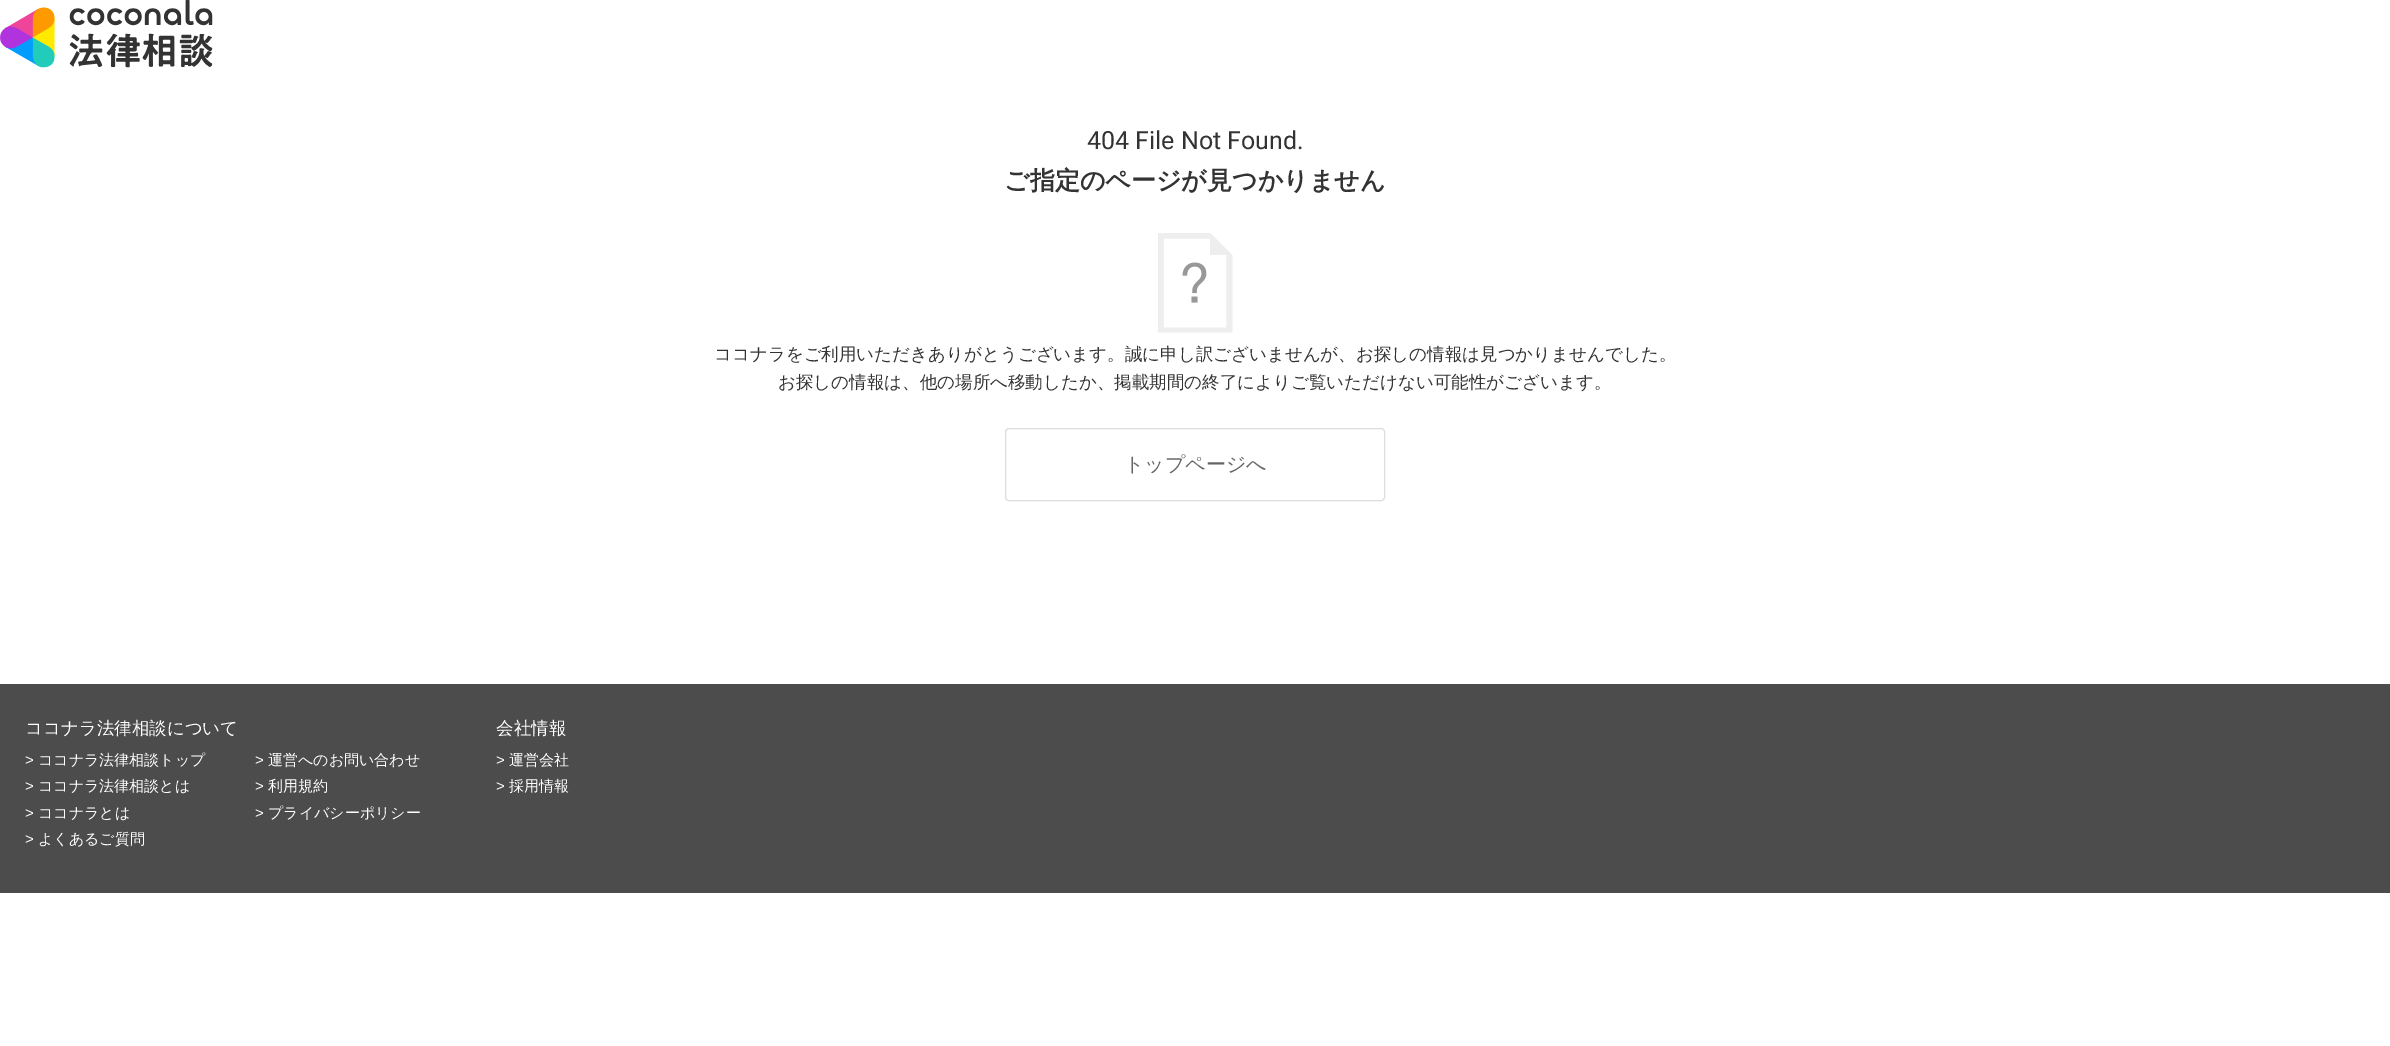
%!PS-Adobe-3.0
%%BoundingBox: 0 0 2390 1046
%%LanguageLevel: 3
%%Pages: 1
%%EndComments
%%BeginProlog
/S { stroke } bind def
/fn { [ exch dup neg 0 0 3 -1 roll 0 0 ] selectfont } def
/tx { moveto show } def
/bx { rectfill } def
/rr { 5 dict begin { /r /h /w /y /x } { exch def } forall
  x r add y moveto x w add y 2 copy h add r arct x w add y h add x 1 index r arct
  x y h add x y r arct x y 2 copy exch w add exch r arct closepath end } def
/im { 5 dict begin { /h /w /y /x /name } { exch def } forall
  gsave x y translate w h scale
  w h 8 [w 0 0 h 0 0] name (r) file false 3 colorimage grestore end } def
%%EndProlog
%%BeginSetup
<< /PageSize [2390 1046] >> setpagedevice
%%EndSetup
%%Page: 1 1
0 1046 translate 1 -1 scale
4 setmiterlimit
1 setgray
0 0 2390 1046 bx
(image0.raw) 0 0 213 68 im
/Roboto-Regular 25 fn
0.2 setgray
(404 File Not Found.) 1087 149 tx
/WenQuanYiZenHei-Bold 25 fn
(ご指定のページが見つかりません) 1004 189 tx
(image1.raw) 1158 233 75 100 im
/WenQuanYiZenHei-Medium 17.5 fn
(ココナラをご利用いただきありがとうございます。誠に申し訳ございませんが、お探しの情報は見つかりませんでした。) 714 360 tx
(お探しの情報は、他の場所へ移動したか、掲載期間の終了によりご覧いただけない可能性がございます。) 778 388 tx
0.875 0.863 0.851 setrgbcolor
1005.5 428.5 379 72 3.5 rr S
/WenQuanYiZenHei-Medium 20 fn
0.4 setgray
(トップページへ) 1124 471 tx
0.298 setgray
0 684 2390 209 bx
/WenQuanYiZenHei-Medium 17.5 fn
1 setgray
(ココナラ法律相談について) 25 734 tx
/LiberationSans-Regular 15 fn
(>) 25 765 tx
/WenQuanYiZenHei-Medium 15 fn
(ココナラ法律相談トップ) 38 765 tx
/LiberationSans-Regular 15 fn
(>) 25 791 tx
/WenQuanYiZenHei-Medium 15 fn
(ココナラ法律相談とは) 38 791 tx
/LiberationSans-Regular 15 fn
(>) 25 818 tx
/WenQuanYiZenHei-Medium 15 fn
(ココナラとは) 38 818 tx
/LiberationSans-Regular 15 fn
(>) 25 844 tx
/WenQuanYiZenHei-Medium 15 fn
(よくあるご質問) 38 844 tx
/LiberationSans-Regular 15 fn
(>) 255 765 tx
/WenQuanYiZenHei-Medium 15 fn
(運営へのお問い合わせ) 268 765 tx
/LiberationSans-Regular 15 fn
(>) 255 791 tx
/WenQuanYiZenHei-Medium 15 fn
(利用規約) 268 791 tx
/LiberationSans-Regular 15 fn
(>) 255 818 tx
/WenQuanYiZenHei-Medium 15 fn
(プライバシーポリシー) 268 818 tx
/WenQuanYiZenHei-Medium 17.5 fn
(会社情報) 496 734 tx
/LiberationSans-Regular 15 fn
(>) 496 765 tx
/WenQuanYiZenHei-Medium 15 fn
(運営会社) 509 765 tx
/LiberationSans-Regular 15 fn
(>) 496 791 tx
/WenQuanYiZenHei-Medium 15 fn
(採用情報) 509 791 tx
showpage
%%EOF
